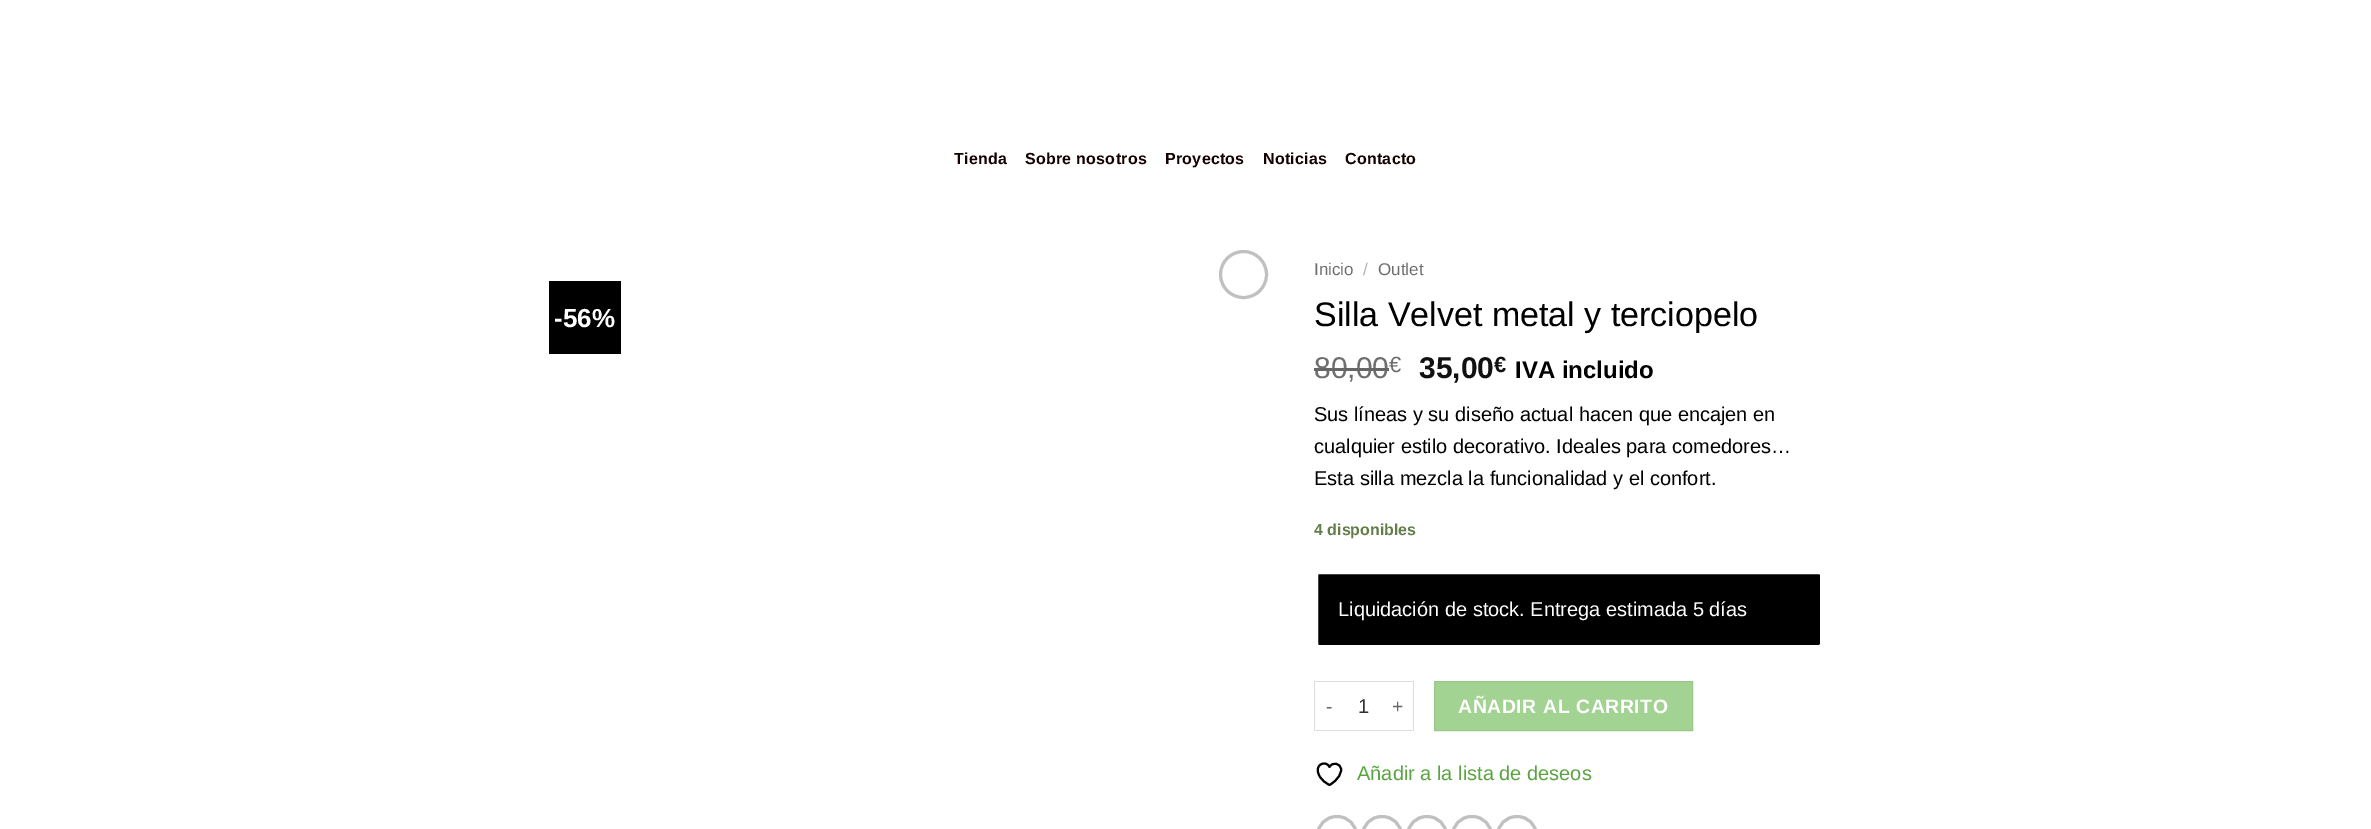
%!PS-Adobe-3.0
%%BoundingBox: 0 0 2371 829
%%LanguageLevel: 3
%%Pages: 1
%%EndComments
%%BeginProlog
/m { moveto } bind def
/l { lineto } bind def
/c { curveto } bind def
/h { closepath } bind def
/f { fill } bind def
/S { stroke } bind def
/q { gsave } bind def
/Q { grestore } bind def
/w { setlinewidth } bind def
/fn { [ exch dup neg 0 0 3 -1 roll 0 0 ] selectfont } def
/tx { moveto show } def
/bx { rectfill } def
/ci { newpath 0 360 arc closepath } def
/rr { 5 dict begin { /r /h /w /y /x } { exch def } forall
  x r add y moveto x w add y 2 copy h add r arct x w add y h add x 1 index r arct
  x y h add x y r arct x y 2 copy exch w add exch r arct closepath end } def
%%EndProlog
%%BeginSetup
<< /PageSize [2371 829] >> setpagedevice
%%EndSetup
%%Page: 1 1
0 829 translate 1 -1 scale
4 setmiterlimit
1 setgray
0 0 2371 829 bx
/LiberationSans-Bold 16 fn
0.078 0 0 setrgbcolor
954 164 m 0.25 0 (Tienda) ashow
1025 164 m 0.25 0 (Sobre nosotros) ashow
1165 164 m 0.25 0 (Proyectos) ashow
1263 164 m 0.25 0 (Noticias) ashow
1345 164 m 0.25 0 (Contacto) ashow
0.753 setgray
3 w
1243.5 274.5 23 ci S
0 setgray
549 281 72 73 bx
/LiberationSans-Bold 26 fn
1 setgray
(-56%) 554 327 tx
/LiberationSans-Regular 17 fn
0.431 setgray
(Inicio) 1314 275 tx
0.698 setgray
(/) 1363 275 tx
0.431 setgray
(Outlet) 1378 275 tx
/LiberationSans-Regular 34 fn
0 setgray
(Silla Velvet metal y terciopelo) 1314 326 tx
/LiberationSans-Regular 30 fn
0.431 setgray
(80,00) 1314 378 tx
0.4 setgray
1314 368 75 3 bx
/LiberationSans-Regular 22 fn
0.431 setgray
(€) 1389 372 tx
/LiberationSans-Bold 30 fn
0.067 setgray
(35,00) 1419 378 tx
/LiberationSans-Bold 22 fn
(€) 1494 372 tx
/LiberationSans-Bold 24 fn
0 setgray
(IVA incluido) 1515 378 tx
/LiberationSans-Regular 20 fn
(Sus líneas y su diseño actual hacen que encajen en) 1314 421 tx
(cualquier estilo decorativo. Ideales para comedores…) 1314 453 tx
(Esta silla mezcla la funcionalidad y el confort.) 1314 485 tx
/LiberationSans-Bold 16 fn
0.384 0.49 0.278 setrgbcolor
(4 disponibles) 1314 535 tx
0 setgray
1316 572 506 75 3 rr q f Q
1 setgray
4 w
S
/LiberationSans-Regular 20 fn
(Liquidación de stock. Entrega estimada 5 días) 1338 616 tx
0.867 setgray
1314 681 100 1 bx
1314 730 70 1 bx
1314 681 1 50 bx
/LiberationSans-Regular 19.4 fn
0.4 setgray
1326 713 m 0.6 0 (-) ashow
/LiberationSans-Regular 20 fn
0.2 setgray
(1) 1358 713 tx
0.867 setgray
1413 681 1 50 bx
1384 730 30 1 bx
/LiberationSans-Regular 19.4 fn
0.4 setgray
1392 713 m 0.6 0 (+) ashow
0.635 0.827 0.573 setrgbcolor
1434.5 681.5 m 1692.5 681.5 l 1692.5 730.5 l 1434.5 730.5 l h q f Q
0.604 0.784 0.545 setrgbcolor
1 w
S
/LiberationSans-Bold 19.4 fn
1 setgray
1458 713 m 0.6 0 (AÑADIR AL CARRITO) ashow
/LiberationSans-Regular 20 fn
0.353 0.643 0.255 setrgbcolor
(Añadir a la lista de deseos) 1357 780 tx
0 setgray
2 w
1 setlinecap
1 setlinejoin
1341 769.5 m 1341 763 1332 761.5 1329.5 767 c 1326 759.5 1313 764.5 1319.5 776 c 1321.5 780 1325.5 783 1329.5 785 c 1329.5 785 1341 779 1341 769.5 c h S
0.753 setgray
3 w
0 setlinecap
0 setlinejoin
1317.5 816.5 39 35 19 rr S
1362.5 816.5 39 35 19 rr S
1407.5 816.5 39 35 19 rr S
1452.5 816.5 39 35 19 rr S
1497.5 816.5 39 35 19 rr S
showpage
%%EOF
